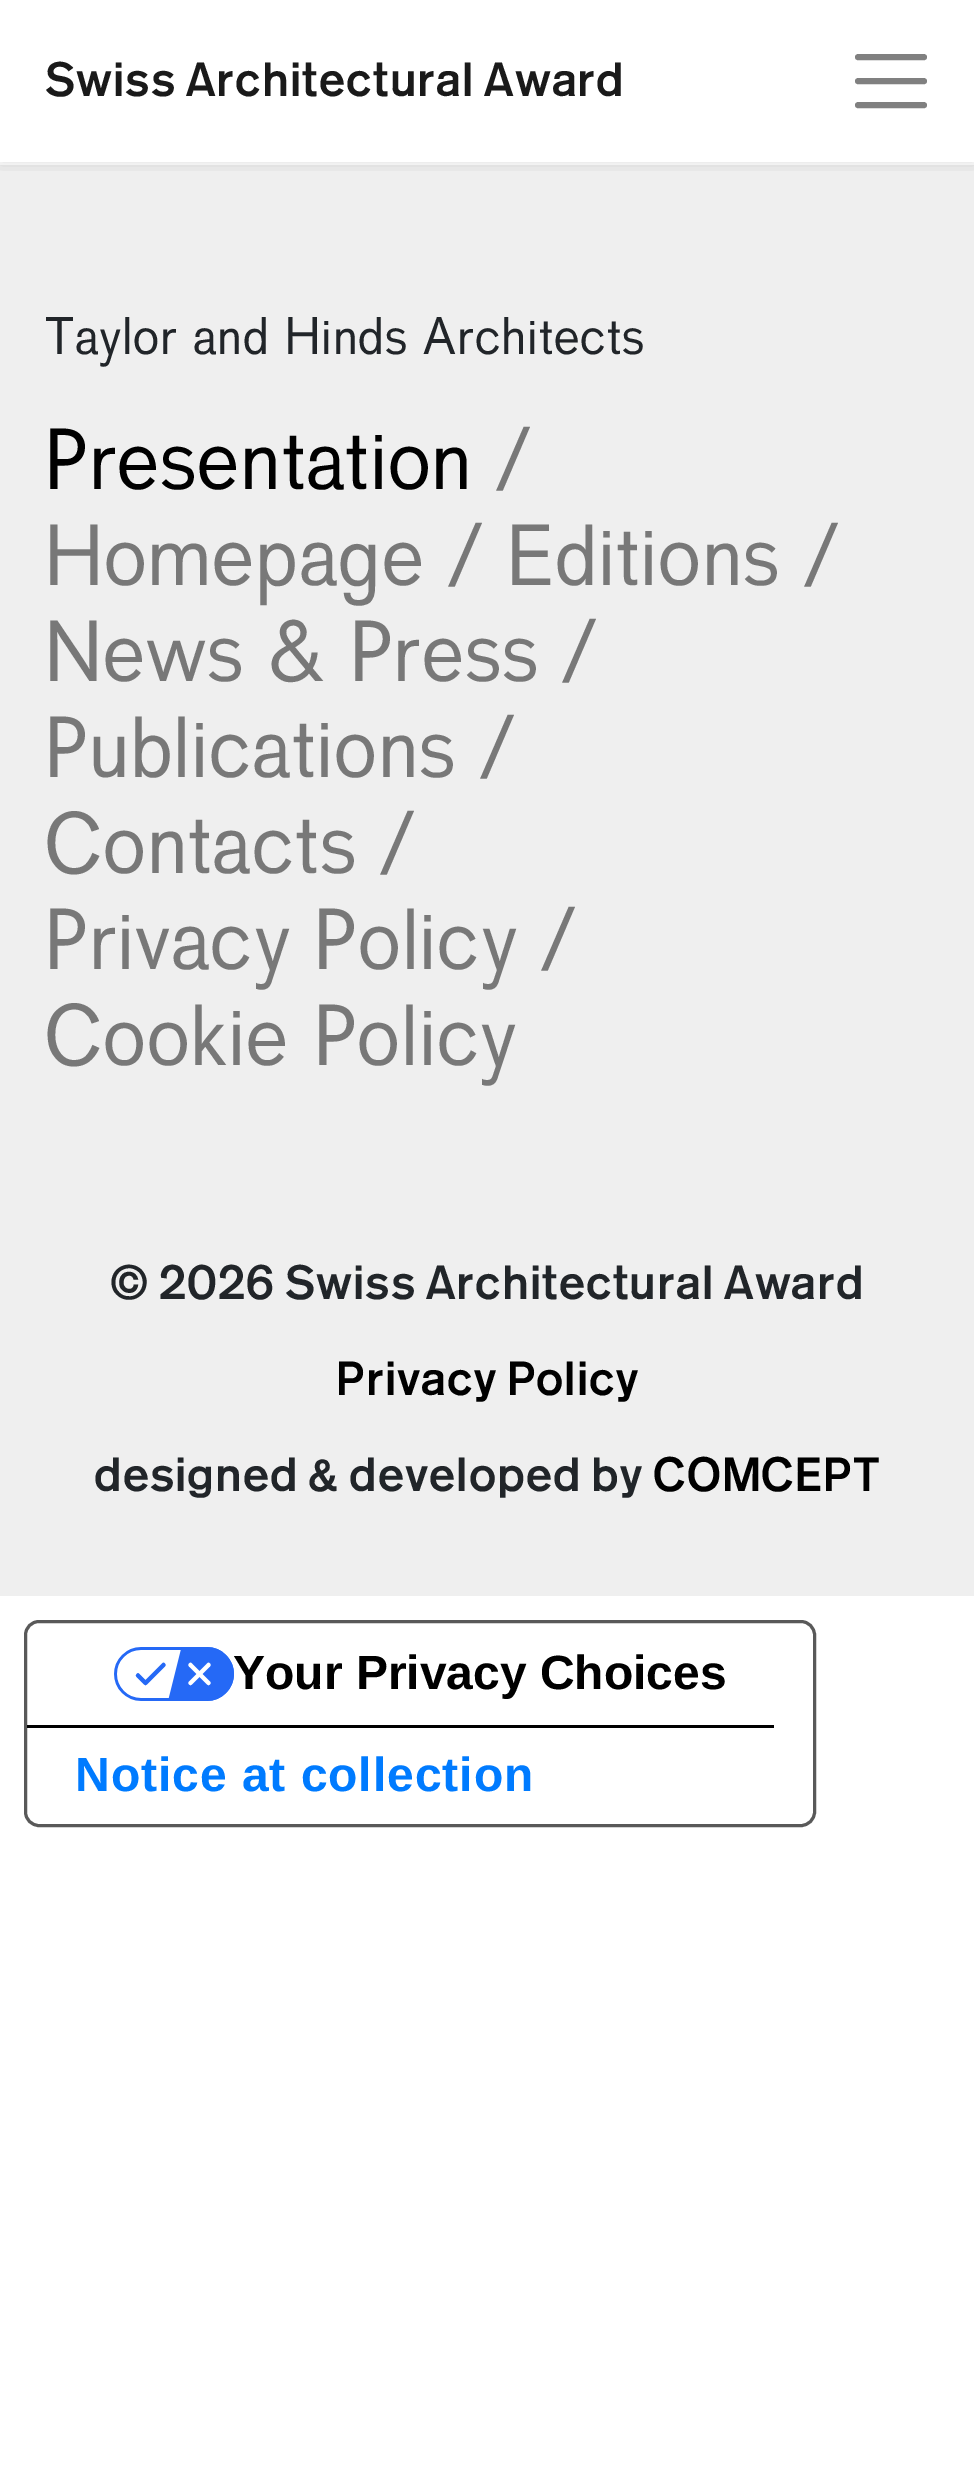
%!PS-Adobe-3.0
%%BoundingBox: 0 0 974 2473
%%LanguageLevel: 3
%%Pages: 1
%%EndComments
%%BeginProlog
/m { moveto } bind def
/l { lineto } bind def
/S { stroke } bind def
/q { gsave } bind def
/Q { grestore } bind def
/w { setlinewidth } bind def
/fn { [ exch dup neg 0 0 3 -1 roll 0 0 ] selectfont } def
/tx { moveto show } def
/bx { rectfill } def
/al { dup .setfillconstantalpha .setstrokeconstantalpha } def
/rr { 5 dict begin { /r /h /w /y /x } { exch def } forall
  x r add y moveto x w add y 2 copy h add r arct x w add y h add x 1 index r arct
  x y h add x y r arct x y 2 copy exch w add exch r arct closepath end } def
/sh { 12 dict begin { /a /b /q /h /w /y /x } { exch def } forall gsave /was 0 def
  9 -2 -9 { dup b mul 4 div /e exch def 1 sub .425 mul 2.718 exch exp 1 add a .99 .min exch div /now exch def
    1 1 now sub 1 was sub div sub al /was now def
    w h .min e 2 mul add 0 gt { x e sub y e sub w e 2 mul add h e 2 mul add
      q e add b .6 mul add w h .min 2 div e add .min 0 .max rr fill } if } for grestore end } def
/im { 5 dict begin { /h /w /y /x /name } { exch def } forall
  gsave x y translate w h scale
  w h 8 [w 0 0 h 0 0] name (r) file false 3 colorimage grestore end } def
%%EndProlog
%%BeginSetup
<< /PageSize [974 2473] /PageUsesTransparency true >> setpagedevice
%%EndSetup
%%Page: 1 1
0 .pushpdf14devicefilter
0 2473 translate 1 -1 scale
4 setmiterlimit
1 setgray
0 0 974 2473 bx
0.937 setgray
0 165 974 1431 bx
q
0 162 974 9 rectclip
0 setgray
0 3 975 162 0 7.5 0.1 sh
Q
/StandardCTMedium-Regular 48 fn
0.102 setgray
45 96 m 0.95 0 (Swiss Architectural Award) ashow
0.502 setgray
6 w
1 setlinecap
858 57 m 924 57 l 858 81 m 924 81 l 858 105 m 924 105 l S
/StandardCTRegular-Regular 52.75 fn
0.129 0.145 0.161 setrgbcolor
45 354 m 0.95 0 (Taylor and Hinds Architects) ashow
/StandardCTRegular-Regular 86.5 fn
0 setgray
45 489 m 0.95 0 (Presentation) ashow
0.471 setgray
496 489 m 0.95 0 (/) ashow
45 585 m 0.95 0 (Homepage) ashow
448 585 m 0.95 0 (/) ashow
507 585 m 0.95 0 (Editions) ashow
804 585 m 0.95 0 (/) ashow
45 681 m 0.95 0 (News & Press) ashow
562 681 m 0.95 0 (/) ashow
45 777 m 0.95 0 (Publications) ashow
480 777 m 0.95 0 (/) ashow
45 873 m 0.95 0 (Contacts) ashow
380 873 m 0.95 0 (/) ashow
45 969 m 0.95 0 (Privacy Policy) ashow
541 969 m 0.95 0 (/) ashow
45 1065 m 0.95 0 (Cookie Policy) ashow
/StandardCTMedium-Regular 48 fn
0.129 0.145 0.161 setrgbcolor
110 1299 m 0.95 0 (© 2026 Swiss Architectural Award) ashow
0 setgray
336 1395 m 0.95 0 (Privacy Policy) ashow
0.129 0.145 0.161 setrgbcolor
94 1491 m 0.95 0 (designed & developed by) ashow
0 setgray
653 1491 m 0.95 0 (COMCEPT) ashow
0.349 setgray
3 w
0 setlinecap
25.5 1621.5 789 204 13.5 rr S
0 setgray
27 1725 747 3 bx
(image0.raw) 114 1647 120 54 im
/LiberationSans-Bold 48 fn
(Your Privacy Choices) 233 1689 tx
0 0.482 1 setrgbcolor
75 1791 m 0.95 0 (Notice at collection) ashow
.poppdf14devicefilter showpage
%%EOF
